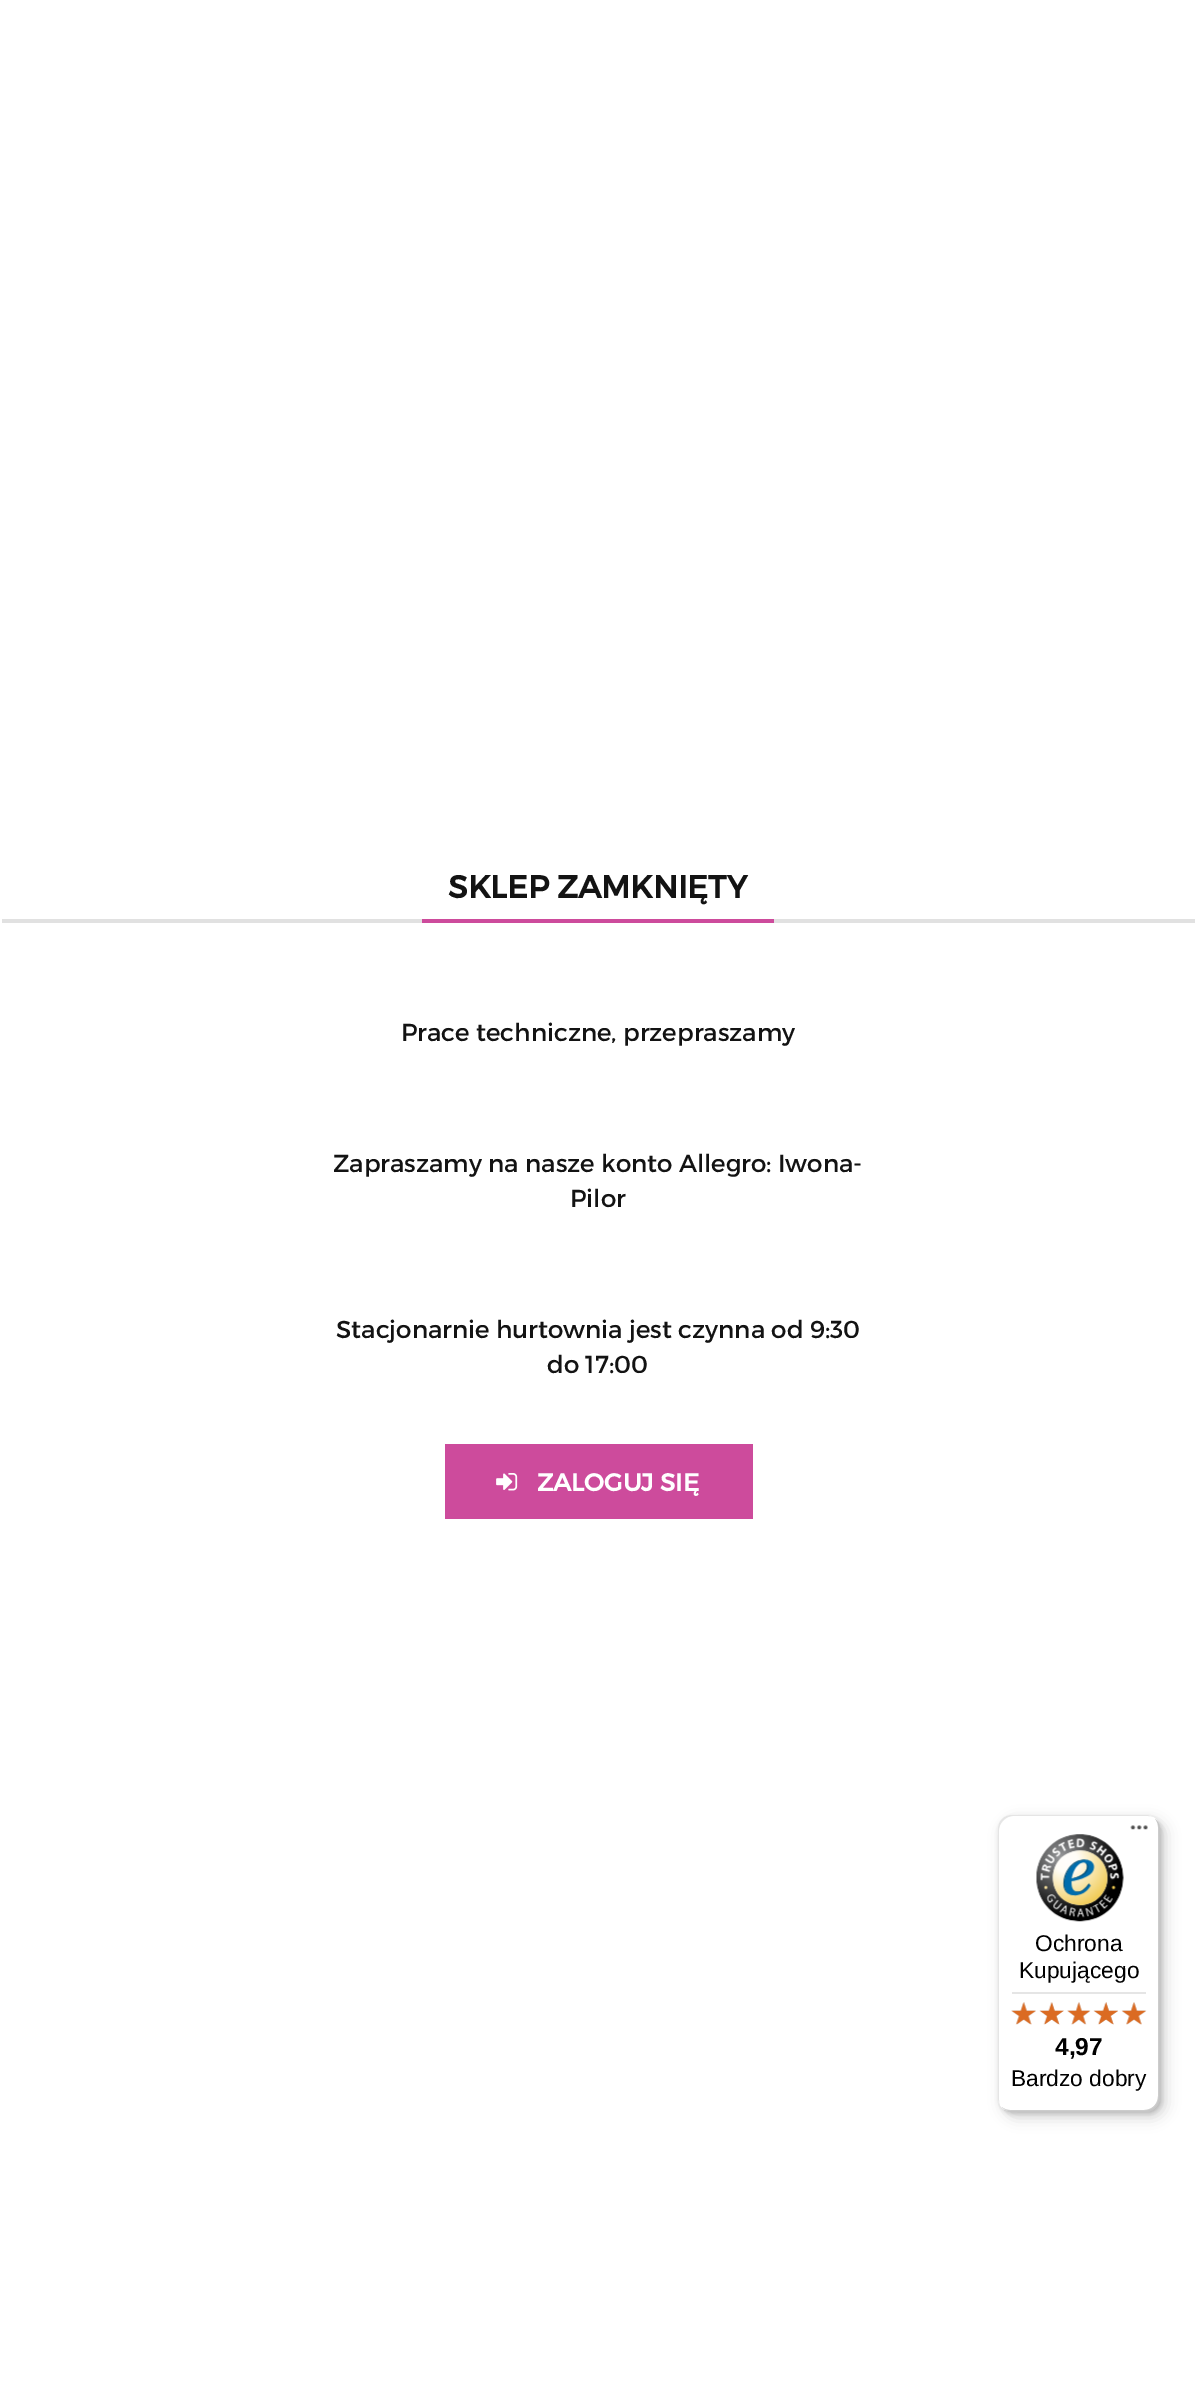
%!PS-Adobe-3.0
%%BoundingBox: 0 0 1195 2381
%%LanguageLevel: 3
%%Pages: 1
%%EndComments
%%BeginProlog
/m { moveto } bind def
/l { lineto } bind def
/c { curveto } bind def
/h { closepath } bind def
/f { fill } bind def
/fn { [ exch dup neg 0 0 3 -1 roll 0 0 ] selectfont } def
/tx { moveto show } def
/bx { rectfill } def
/al { dup .setfillconstantalpha .setstrokeconstantalpha } def
/rr { 5 dict begin { /r /h /w /y /x } { exch def } forall
  x r add y moveto x w add y 2 copy h add r arct x w add y h add x 1 index r arct
  x y h add x y r arct x y 2 copy exch w add exch r arct closepath end } def
/sh { 12 dict begin { /a /b /q /h /w /y /x } { exch def } forall gsave /was 0 def
  9 -2 -9 { dup b mul 4 div /e exch def 1 sub .425 mul 2.718 exch exp 1 add a .99 .min exch div /now exch def
    1 1 now sub 1 was sub div sub al /was now def
    w h .min e 2 mul add 0 gt { x e sub y e sub w e 2 mul add h e 2 mul add
      q e add b .6 mul add w h .min 2 div e add .min 0 .max rr fill } if } for grestore end } def
/im { 5 dict begin { /h /w /y /x /name } { exch def } forall
  gsave x y translate w h scale
  w h 8 [w 0 0 h 0 0] name (r) file false 3 colorimage grestore end } def
%%EndProlog
%%BeginSetup
<< /PageSize [1195 2381] /PageUsesTransparency true >> setpagedevice
%%EndSetup
%%Page: 1 1
0 .pushpdf14devicefilter
0 2381 translate 1 -1 scale
4 setmiterlimit
1 setgray
0 0 1195 2381 bx
/Montserrat-Bold 31.5 fn
0.075 setgray
(SKLEP ZAMKNIĘTY) 448 898 tx
0.882 setgray
2 919 1193 4 bx
0.804 0.294 0.612 setrgbcolor
422 919 352 4 bx
/Montserrat-Regular 24.5 fn
0.075 setgray
(Prace techniczne, przepraszamy) 401 1041 tx
(Zapraszamy na nasze konto Allegro: Iwona-) 333 1172 tx
(Pilor) 570 1207 tx
(Stacjonarnie hurtownia jest czynna od 9:30) 336 1338 tx
(do 17:00) 547 1373 tx
0.804 0.294 0.612 setrgbcolor
445 1444 308 75 bx
(image0.raw) 496 1473 22 18 im
/Montserrat-Bold 24.5 fn
1 setgray
(ZALOGUJ SIĘ) 537 1491 tx
0 setgray
1003 1820 163 298 14 7 0.15 sh
999 1817 163 297 14 2 0.15 sh
1 setgray
998 1815 162 297 14 rr f
0.898 setgray
1013 1816 m 1148 1816 l 1150 1816 1152 1816 1153 1817 c 1151 1816 1149 1815 1146 1815 c 1012 1815 l 1004 1815 998 1821 998 1829 c 998 2098 l 998 2101 999 2103 1000 2105 c 999 2104 999 2102 999 2100 c 999 1830 l 999 1823 1006 1816 1013 1816 c h f
0.2 al
0 setgray
1002 2107 m 1004 2110 1008 2112 1012 2112 c 1146 2112 l 1154 2112 1160 2106 1160 2098 c 1160 1829 l 1160 1825 1158 1821 1155 1819 c 1157 1821 1158 1824 1158 1827 c 1158 2096 l 1158 2104 1152 2110 1144 2110 c 1010 2110 l 1007 2110 1004 2109 1002 2107 c h f
0.196 setgray
1004 2110 m 1006 2111 1009 2112 1012 2112 c 1146 2112 l 1154 2112 1160 2106 1160 2098 c 1160 1829 l 1160 1825 1159 1822 1156 1820 c 1158 1822 1159 1825 1159 1828 c 1159 2097 l 1159 2105 1153 2111 1145 2111 c 1010 2111 l 1008 2111 1006 2111 1004 2110 c h f
0.3 al
1 setgray
1003 2108 m 1005 2111 1008 2112 1012 2112 c 1146 2112 l 1154 2112 1160 2106 1160 2098 c 1160 1829 l 1160 1825 1159 1822 1156 1820 c 1158 1822 1159 1825 1159 1828 c 1159 2097 l 1159 2105 1153 2111 1145 2111 c 1011 2111 l 1008 2111 1005 2110 1003 2108 c h f
1 al
(image1.raw) 1130 1825 18 5 im
(image2.raw) 1036 1834 88 88 im
/LiberationSans-Regular 22.75 fn
0 setgray
(Ochrona) 1035 1951 tx
(Kupującego) 1019 1978 tx
0.898 setgray
1012 1992 134 2 bx
(image3.raw) 1011 2002 25 23 im
(image4.raw) 1040 2002 24 23 im
(image5.raw) 1067 2002 23 23 im
(image6.raw) 1094 2002 24 23 im
(image7.raw) 1122 2002 24 23 im
(image8.raw) 1011 2002 25 23 im
(image9.raw) 1039 2002 25 23 im
(image10.raw) 1067 2002 24 23 im
(image11.raw) 1093 2002 25 23 im
(image12.raw) 1121 2002 26 23 im
/LiberationSans-Bold 24.5 fn
0 setgray
(4,97) 1055 2055 tx
/LiberationSans-Regular 22.75 fn
(Bardzo dobry) 1011 2086 tx
.poppdf14devicefilter showpage
%%EOF
